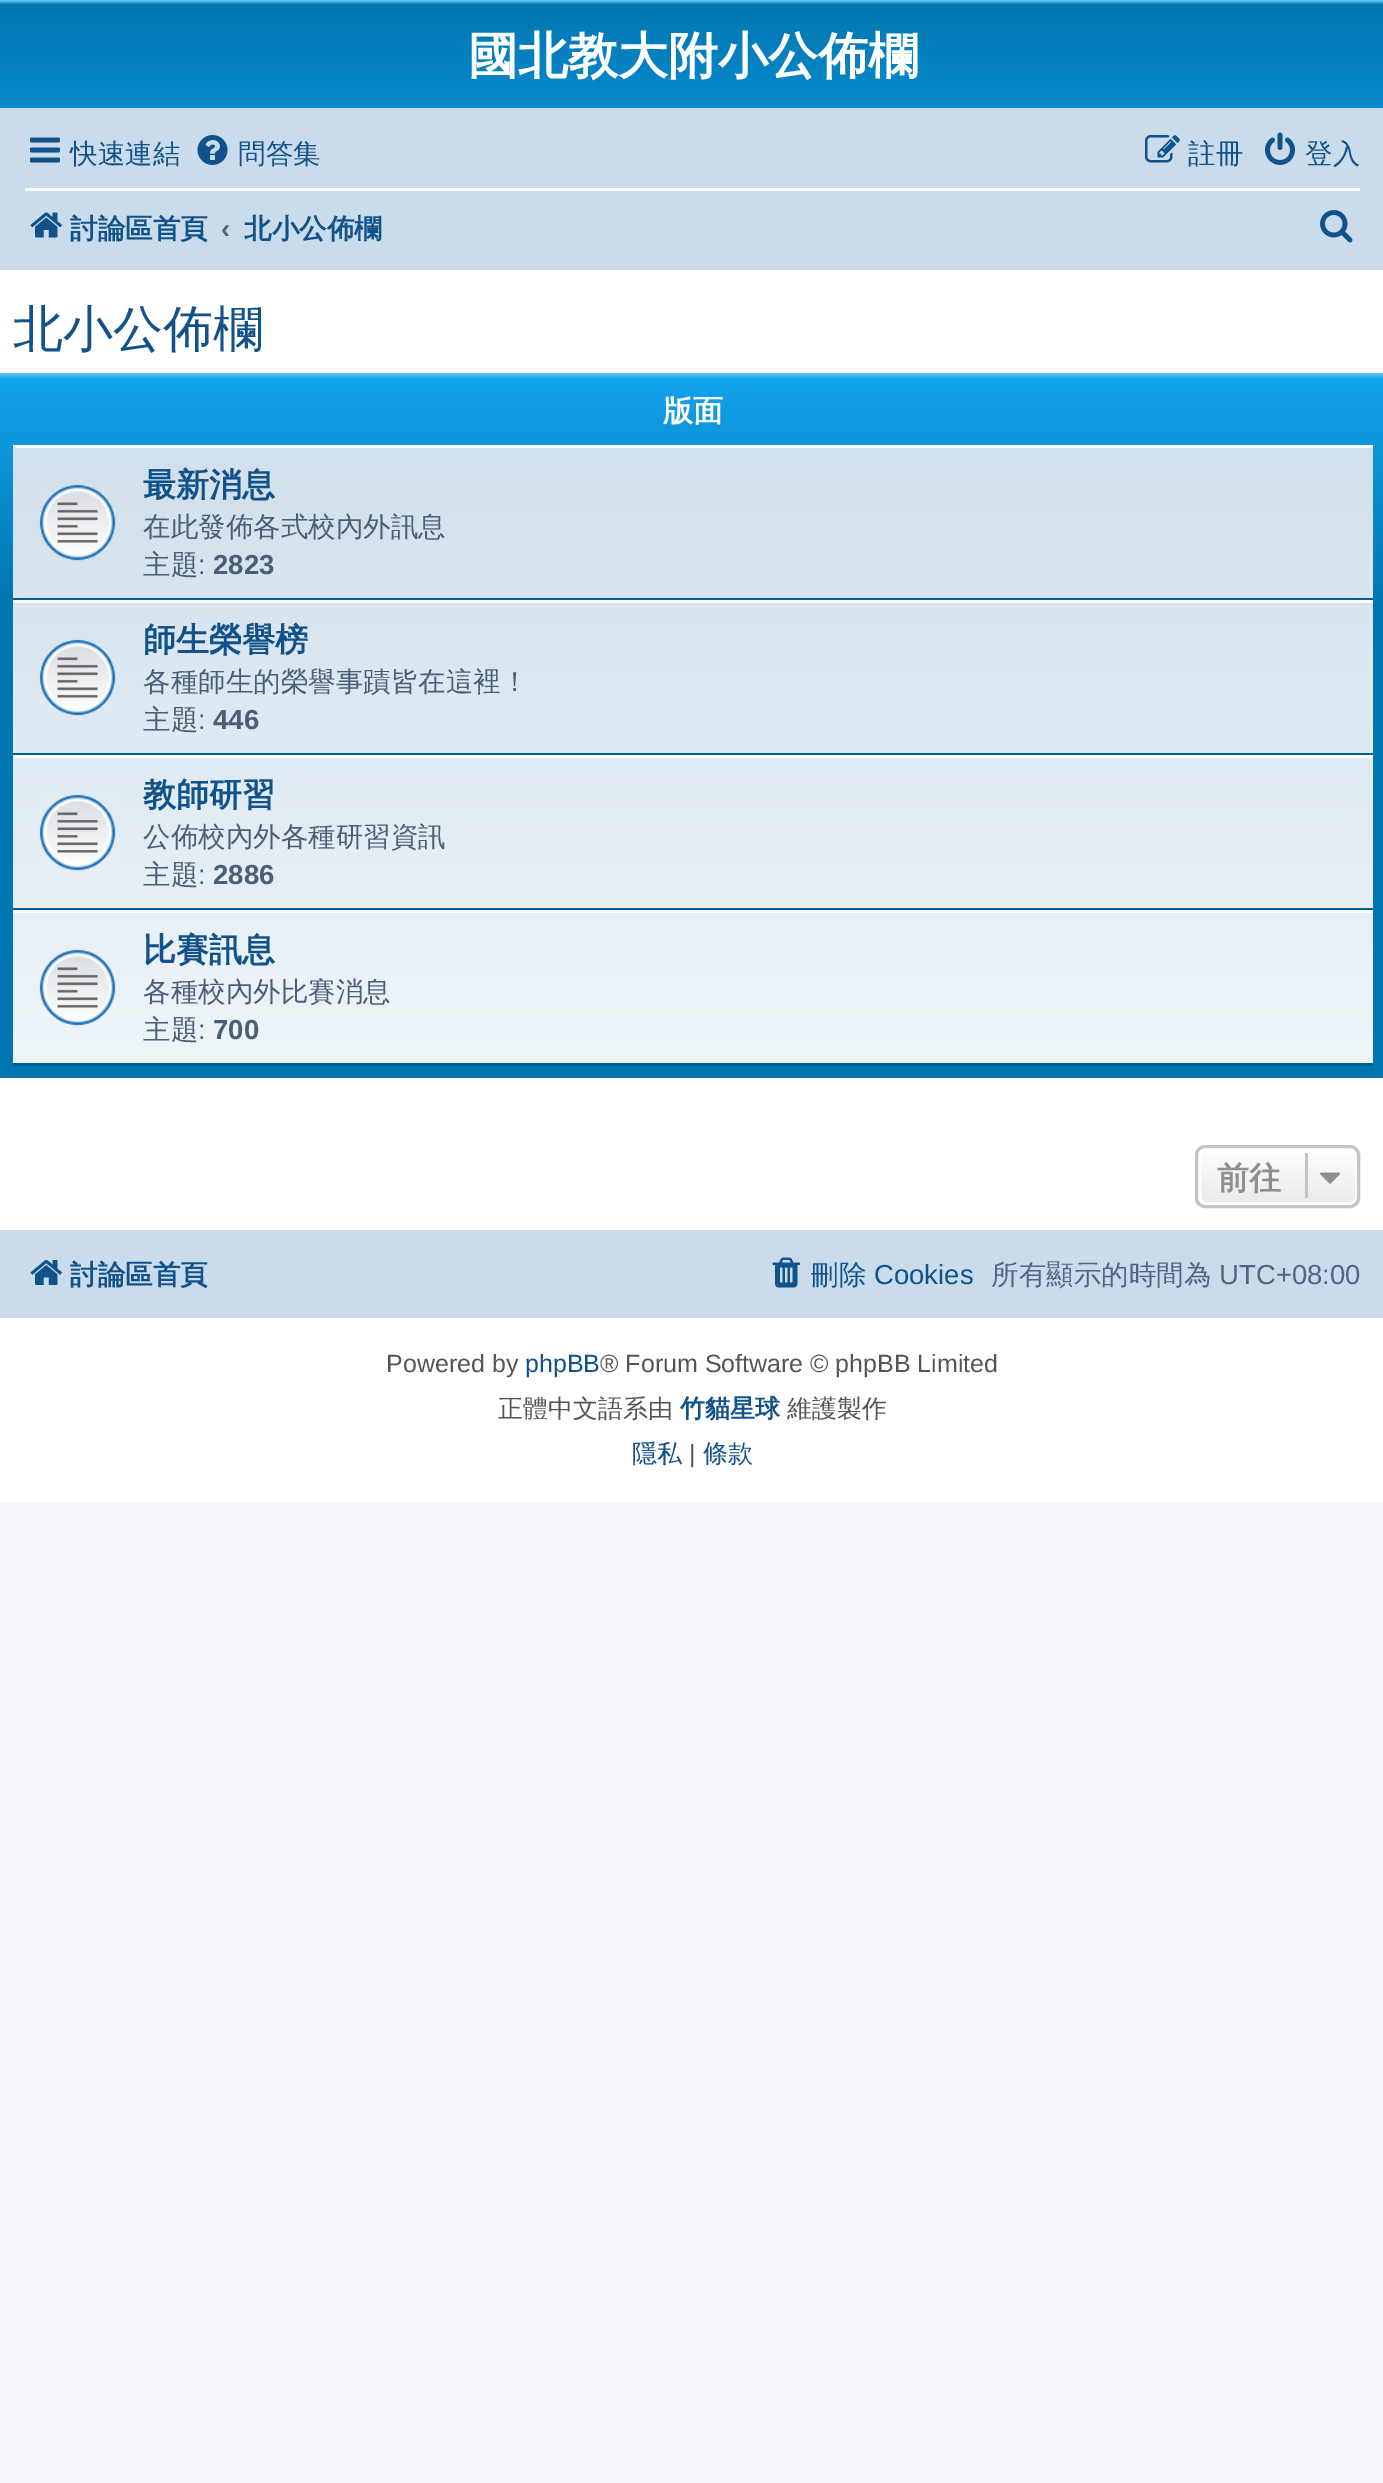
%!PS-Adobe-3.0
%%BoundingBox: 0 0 1383 2483
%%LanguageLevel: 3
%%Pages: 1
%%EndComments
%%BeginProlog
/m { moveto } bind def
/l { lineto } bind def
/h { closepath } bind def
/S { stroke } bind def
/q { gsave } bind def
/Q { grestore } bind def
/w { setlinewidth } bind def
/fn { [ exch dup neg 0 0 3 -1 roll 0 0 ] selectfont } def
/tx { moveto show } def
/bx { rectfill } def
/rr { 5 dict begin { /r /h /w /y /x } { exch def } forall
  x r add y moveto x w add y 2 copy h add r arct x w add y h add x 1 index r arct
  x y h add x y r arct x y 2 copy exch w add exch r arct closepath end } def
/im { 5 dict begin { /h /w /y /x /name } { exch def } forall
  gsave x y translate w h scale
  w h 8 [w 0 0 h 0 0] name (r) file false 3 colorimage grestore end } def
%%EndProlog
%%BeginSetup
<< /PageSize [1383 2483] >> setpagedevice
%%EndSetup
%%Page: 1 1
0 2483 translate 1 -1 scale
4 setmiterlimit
0.961 0.969 0.98 setrgbcolor
0 0 1383 2483 bx
1 setgray
0 270 1383 1233 bx
q 0 0 m 1383 0 l 1383 108 l 0 108 l h clip newpath
<< /ShadingType 2 /ColorSpace /DeviceRGB /Coords [693 0 693 230] /Extend [true true] /Function << /FunctionType 3 /Domain [0 1] /Functions [<< /FunctionType 2 /Domain [0 1] /C0 [0.416 0.808 1] /C1 [0 0.463 0.694] /N 1 >> << /FunctionType 2 /Domain [0 1] /C0 [0 0.463 0.694] /C1 [0.071 0.639 0.922] /N 1 >>] /Bounds [0.02] /Encode [0 1 0 1] >> >> shfill Q
/WenQuanYiZenHei-Bold 50 fn
(國北教大附小公佈欄) 468 73 tx
0.792 0.863 0.922 setrgbcolor
0 108 1383 162 bx
(image0.raw) 30 137 30 26 im
/WenQuanYiZenHei-Medium 27.5 fn
0.063 0.322 0.537 setrgbcolor
(快速連結) 70 163 tx
(image1.raw) 197 135 31 30 im
(問答集) 238 163 tx
(image2.raw) 1145 135 35 28 im
(註冊) 1188 163 tx
(image3.raw) 1265 132 30 33 im
(登入) 1305 163 tx
1 setgray
25 188 1335 3 bx
(image4.raw) 30 212 32 26 im
/WenQuanYiZenHei-Bold 27.5 fn
0.063 0.322 0.537 setrgbcolor
(討論區首頁) 70 238 tx
/LiberationSans-Bold 27.5 fn
0.325 0.392 0.51 setrgbcolor
(‹) 221 238 tx
/WenQuanYiZenHei-Bold 27.5 fn
0.063 0.322 0.537 setrgbcolor
(北小公佈欄) 244 238 tx
(image5.raw) 1320 210 33 33 im
/WenQuanYiZenHei-Medium 50 fn
(北小公佈欄) 13 346 tx
q 0 373 m 1383 373 l 1383 1078 l 0 1078 l h clip newpath
<< /ShadingType 2 /ColorSpace /DeviceRGB /Coords [693 372 693 1078] /Extend [true true] /Function << /FunctionType 3 /Domain [0 1] /Functions [<< /FunctionType 2 /Domain [0 1] /C0 [0.416 0.808 1] /C1 [0.071 0.639 0.922] /N 1 >> << /FunctionType 2 /Domain [0 1] /C0 [0.071 0.639 0.922] /C1 [0 0.463 0.694] /N 1 >> << /FunctionType 2 /Domain [0 1] /C0 [0 0.463 0.694] /C1 [0 0.463 0.694] /N 1 >>] /Bounds [0.01 0.33] /Encode [0 1 0 1 0 1] >> >> shfill Q
/WenQuanYiZenHei-Bold 30 fn
1 setgray
(版面) 663 421 tx
q 13 448 m 1373 448 l 1373 1063 l 13 1063 l h clip newpath
<< /ShadingType 2 /ColorSpace /DeviceRGB /Coords [693 445 693 1065] /Extend [true true] /Function << /FunctionType 2 /Domain [0 1] /C0 [0.824 0.878 0.922] /C1 [0.933 0.961 0.976] /N 1 >> >> shfill Q
13 445 1360 3 bx
0 0.376 0.561 setrgbcolor
13 598 1360 2 bx
(image6.raw) 39 484 77 77 im
/WenQuanYiZenHei-Bold 33 fn
0.063 0.322 0.537 setrgbcolor
(最新消息) 143 496 tx
/WenQuanYiZenHei-Medium 27.5 fn
0.298 0.365 0.467 setrgbcolor
(在此發佈各式校內外訊息) 143 536 tx
(主題) 143 574 tx
/LiberationSans-Regular 27.5 fn
(:) 198 574 tx
/LiberationSans-Bold 27.5 fn
(2823) 213 574 tx
1 setgray
13 600 1360 3 bx
0 0.376 0.561 setrgbcolor
13 753 1360 2 bx
(image7.raw) 39 639 77 77 im
/WenQuanYiZenHei-Bold 33 fn
0.063 0.322 0.537 setrgbcolor
(師生榮譽榜) 143 651 tx
/WenQuanYiZenHei-Medium 27.5 fn
0.298 0.365 0.467 setrgbcolor
(各種師生的榮譽事蹟皆在這裡！) 143 691 tx
(主題) 143 729 tx
/LiberationSans-Regular 27.5 fn
(:) 198 729 tx
/LiberationSans-Bold 27.5 fn
(446) 213 729 tx
1 setgray
13 755 1360 3 bx
0 0.376 0.561 setrgbcolor
13 908 1360 2 bx
(image8.raw) 39 794 77 77 im
/WenQuanYiZenHei-Bold 33 fn
0.063 0.322 0.537 setrgbcolor
(教師研習) 143 806 tx
/WenQuanYiZenHei-Medium 27.5 fn
0.298 0.365 0.467 setrgbcolor
(公佈校內外各種研習資訊) 143 846 tx
(主題) 143 884 tx
/LiberationSans-Regular 27.5 fn
(:) 198 884 tx
/LiberationSans-Bold 27.5 fn
(2886) 213 884 tx
1 setgray
13 910 1360 3 bx
0 0.376 0.561 setrgbcolor
13 1063 1360 3 bx
(image9.raw) 39 949 77 77 im
/WenQuanYiZenHei-Bold 33 fn
0.063 0.322 0.537 setrgbcolor
(比賽訊息) 143 961 tx
/WenQuanYiZenHei-Medium 27.5 fn
0.298 0.365 0.467 setrgbcolor
(各種校內外比賽消息) 143 1001 tx
(主題) 143 1039 tx
/LiberationSans-Regular 27.5 fn
(:) 198 1039 tx
/LiberationSans-Bold 27.5 fn
(700) 213 1039 tx
q
1195 1145 165 63 10 rr clip newpath
q 1195 1148 m 1360 1148 l 1360 1205 l 1195 1205 l h clip newpath
<< /ShadingType 2 /ColorSpace /DeviceRGB /Coords [1278 1148 1278 1205] /Extend [true true] /Function << /FunctionType 2 /Domain [0 1] /C0 [1 1 1] /C1 [0.914 0.914 0.914] /N 1 >> >> shfill Q
Q
1 setgray
3 w
1199.5 1149.5 157 54 6.5 rr S
0.78 0.765 0.749 setrgbcolor
1196.5 1146.5 162 60 8.5 rr S
/WenQuanYiZenHei-Bold 32 fn
0.561 setgray
(前往) 1217 1189 tx
0.78 0.765 0.749 setrgbcolor
1305 1153 3 45 bx
(image10.raw) 1320 1172 20 12 im
0.792 0.863 0.922 setrgbcolor
0 1230 1383 88 bx
(image11.raw) 30 1259 32 26 im
/WenQuanYiZenHei-Bold 27.5 fn
0.063 0.322 0.537 setrgbcolor
(討論區首頁) 70 1284 tx
(image12.raw) 772 1257 28 31 im
/WenQuanYiZenHei-Medium 27.5 fn
(刪除) 811 1284 tx
/LiberationSans-Regular 27.5 fn
(Cookies) 874 1284 tx
/WenQuanYiZenHei-Medium 27.5 fn
0.325 0.392 0.51 setrgbcolor
(所有顯示的時間為) 991 1284 tx
/LiberationSans-Regular 27.5 fn
(UTC+08:00) 1219 1284 tx
/LiberationSans-Regular 25 fn
0.333 setgray
(Powered by) 386 1372 tx
0.063 0.322 0.537 setrgbcolor
(phpBB) 525 1372 tx
0.333 setgray
(® Forum Software © phpBB Limited) 600 1372 tx
/WenQuanYiZenHei-Medium 25 fn
(正體中文語系由) 498 1417 tx
/WenQuanYiZenHei-Bold 25 fn
0.063 0.322 0.537 setrgbcolor
(竹貓星球) 680 1417 tx
/WenQuanYiZenHei-Medium 25 fn
0.333 setgray
(維護製作) 787 1417 tx
0.063 0.322 0.537 setrgbcolor
(隱私) 632 1462 tx
/LiberationSans-Regular 25 fn
0.333 setgray
(|) 689 1462 tx
/WenQuanYiZenHei-Medium 25 fn
0.063 0.322 0.537 setrgbcolor
(條款) 703 1462 tx
showpage
%%EOF
